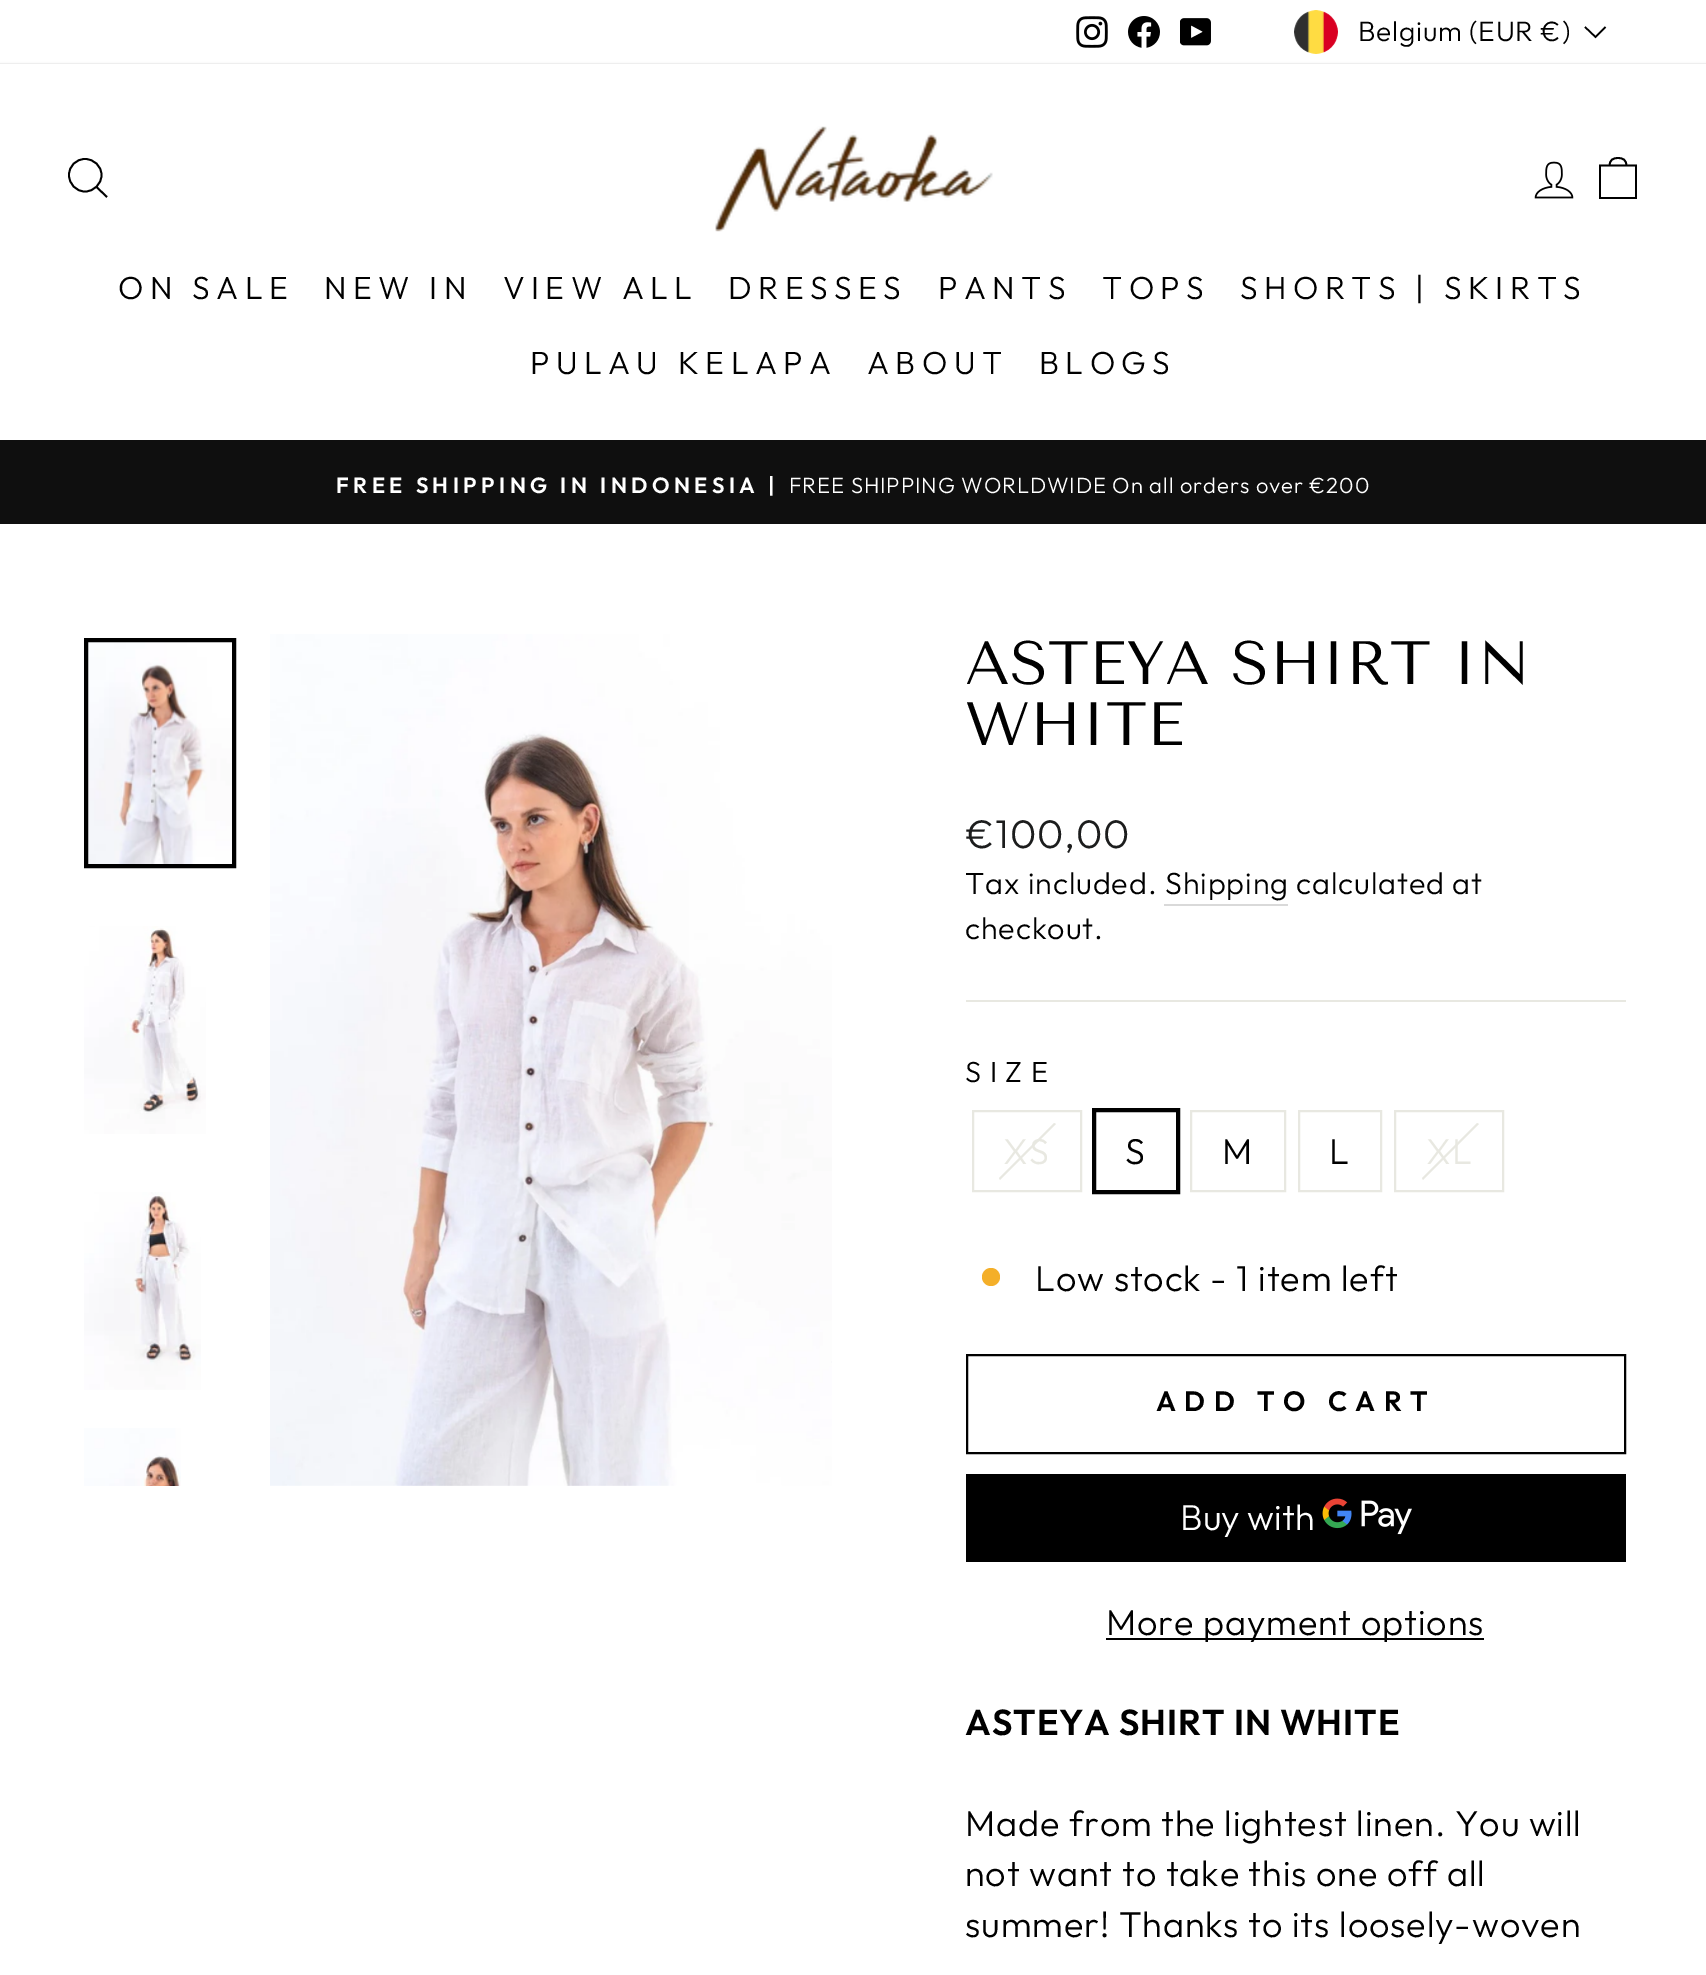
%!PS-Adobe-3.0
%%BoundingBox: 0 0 1706 1975
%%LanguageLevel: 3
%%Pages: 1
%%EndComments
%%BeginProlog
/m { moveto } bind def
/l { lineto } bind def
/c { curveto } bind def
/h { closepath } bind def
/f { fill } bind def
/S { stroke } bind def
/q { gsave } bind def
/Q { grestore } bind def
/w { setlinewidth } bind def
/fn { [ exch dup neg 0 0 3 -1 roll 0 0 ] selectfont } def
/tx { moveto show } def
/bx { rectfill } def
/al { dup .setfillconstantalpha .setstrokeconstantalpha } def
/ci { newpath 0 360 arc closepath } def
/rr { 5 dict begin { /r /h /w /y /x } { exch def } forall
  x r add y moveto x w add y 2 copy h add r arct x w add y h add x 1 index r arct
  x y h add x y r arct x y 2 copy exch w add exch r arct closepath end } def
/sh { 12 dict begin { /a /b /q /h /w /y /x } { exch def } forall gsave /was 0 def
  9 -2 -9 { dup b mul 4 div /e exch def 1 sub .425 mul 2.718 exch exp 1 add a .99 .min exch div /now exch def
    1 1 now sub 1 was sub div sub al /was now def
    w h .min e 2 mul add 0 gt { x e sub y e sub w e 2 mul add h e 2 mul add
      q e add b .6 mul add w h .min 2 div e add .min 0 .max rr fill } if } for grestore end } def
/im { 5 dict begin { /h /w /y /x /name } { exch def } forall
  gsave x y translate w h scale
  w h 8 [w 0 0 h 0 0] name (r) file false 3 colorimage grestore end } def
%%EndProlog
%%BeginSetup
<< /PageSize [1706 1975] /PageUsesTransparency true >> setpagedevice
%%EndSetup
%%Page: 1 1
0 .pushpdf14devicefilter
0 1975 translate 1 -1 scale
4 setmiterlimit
1 setgray
0 0 1706 1975 bx
(image0.raw) 1076 16 32 32 im
(image1.raw) 1128 16 32 32 im
(image2.raw) 1180 18 31 28 im
(image3.raw) 1294 10 44 44 im
/Outfit-Light 28 fn
0 setgray
1358 41 m 0.75 0 (Belgium \(EUR €\)) ashow
1.6 w
1585 27 m 1595.5 37 l 1605.5 27 l S
0.059 setgray
0 440 1706 84 bx
q
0 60 m 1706 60 l 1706 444 l 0 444 l h 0 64 m 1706 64 l 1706 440 l 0 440 l h eoclip newpath
0 setgray
0 64 1706 376 0 1 0.2 sh
Q
0 setgray
1.8 w
101.5 175 m 101.5 184 94 191.5 85 191.5 c 76 191.5 69 184 69 175 c 69 166 76 159 85 159 c 94 159 101.5 166 101.5 175 c h 107 197 m 96.5 187 l S
(image4.raw) 715 126 278 106 im
(image5.raw) 1534 161 40 38 im
1600 165.5 m 1636 165.5 l 1636 198 l 1600 198 l h 1609.5 166 m 1609.5 159.5 1613.5 158 1618 158 c 1622.5 158 1626.5 159.5 1626.5 166 c S
/Outfit-Light 32 fn
118 299 m 6.4 0 (ON SALE) ashow
324 299 m 6.4 0 (NEW IN) ashow
503 299 m 6.4 0 (VIEW ALL) ashow
728 299 m 6.4 0 (DRESSES) ashow
938 299 m 6.4 0 (PANTS) ashow
1102 299 m 6.4 0 (TOPS) ashow
1240 299 m 6.4 0 (SHORTS | SKIRTS) ashow
530 374 m 6.4 0 (PULAU KELAPA) ashow
867 374 m 6.4 0 (ABOUT) ashow
1039 374 m 6.4 0 (BLOGS) ashow
/Outfit-SemiBold 22 fn
1 setgray
336 493 m 4.4 0 (FREE SHIPPING IN INDONESIA |) ashow
/Outfit-Light 22 fn
789 493 m 0.9 0 (FREE SHIPPING WORLDWIDE On all orders over €200) ashow
(image6.raw) 88 642 144 222 im
0 setgray
4 w
86 640 148 226 rectstroke
(image7.raw) 84 926 122 208 im
(image8.raw) 84 1192 117 198 im
(image9.raw) 84 1428 97 58 im
(image10.raw) 270 634 562 852 im
0.976 0.976 0.984 setrgbcolor
831 1361 1 2 bx
/TenorSans-Regular 61.25 fn
0 setgray
(ASTEYA SHIRT IN) 965 684 tx
(WHITE) 965 745 tx
/Outfit-Light 40 fn
0.11 0.114 0.114 setrgbcolor
965 848 m 0.9 0 (€100,00) ashow
/Outfit-Light 30.6 fn
0 setgray
965 894 m 0.9 0 (Tax included. Shipping) ashow
1296 894 m 0.9 0 (calculated at) ashow
0.851 setgray
1164 904 124 2 bx
0 setgray
965 939 m 0.9 0 (checkout.) ashow
0.91 0.91 0.882 setrgbcolor
966 1000 660 2 bx
/Outfit-Light 29 fn
0 setgray
965 1082 m 8.5 0 (SIZE) ashow
0.91 0.91 0.882 setrgbcolor
2 w
973 1111 108 80 rectstroke
1054 1123 m 1056 1124 l 1000 1180 l 999 1178 l h f
/Outfit-Light 36 fn
1003 1164 m 0.9 0 (XS) ashow
0 setgray
4 w
1094 1110 84 82 rectstroke
1125 1164 m 0.9 0 (S) ashow
0.91 0.91 0.882 setrgbcolor
2 w
1191 1111 94 80 rectstroke
0 setgray
1222 1164 m 0.9 0 (M) ashow
0.91 0.91 0.882 setrgbcolor
1299 1111 82 80 rectstroke
0 setgray
1329 1164 m 0.9 0 (L) ashow
0.91 0.91 0.882 setrgbcolor
1395 1111 108 80 rectstroke
1477 1123 m 1479 1124 l 1423 1180 l 1422 1178 l h f
1426 1164 m 0.9 0 (XL) ashow
0.957 0.686 0.161 setrgbcolor
991 1277 9 ci f
0 setgray
1035 1291 m 0.9 0 (Low stock - 1 item left) ashow
967 1355 658 98 rectstroke
/Outfit-SemiBold 28 fn
1156 1411 m 8.4 0 (ADD TO CART) ashow
966 1474 660 88 bx
/Outfit-Light 36 fn
1 setgray
(Buy with) 1180 1530 tx
(image11.raw) 1322 1498 90 37 im
0 setgray
1106 1638 378 2 bx
1106 1635 m 0.9 0 (More payment options) ashow
/Outfit-SemiBold 36 fn
965 1735 m 0.9 0 (ASTEYA SHIRT IN WHITE) ashow
/Outfit-Light 36 fn
965 1836 m 0.9 0 (Made from the lightest linen. You will) ashow
965 1886 m 0.9 0 (not want to take this one off all) ashow
965 1937 m 0.9 0 (summer! Thanks to its loosely-woven) ashow
.poppdf14devicefilter showpage
%%EOF
